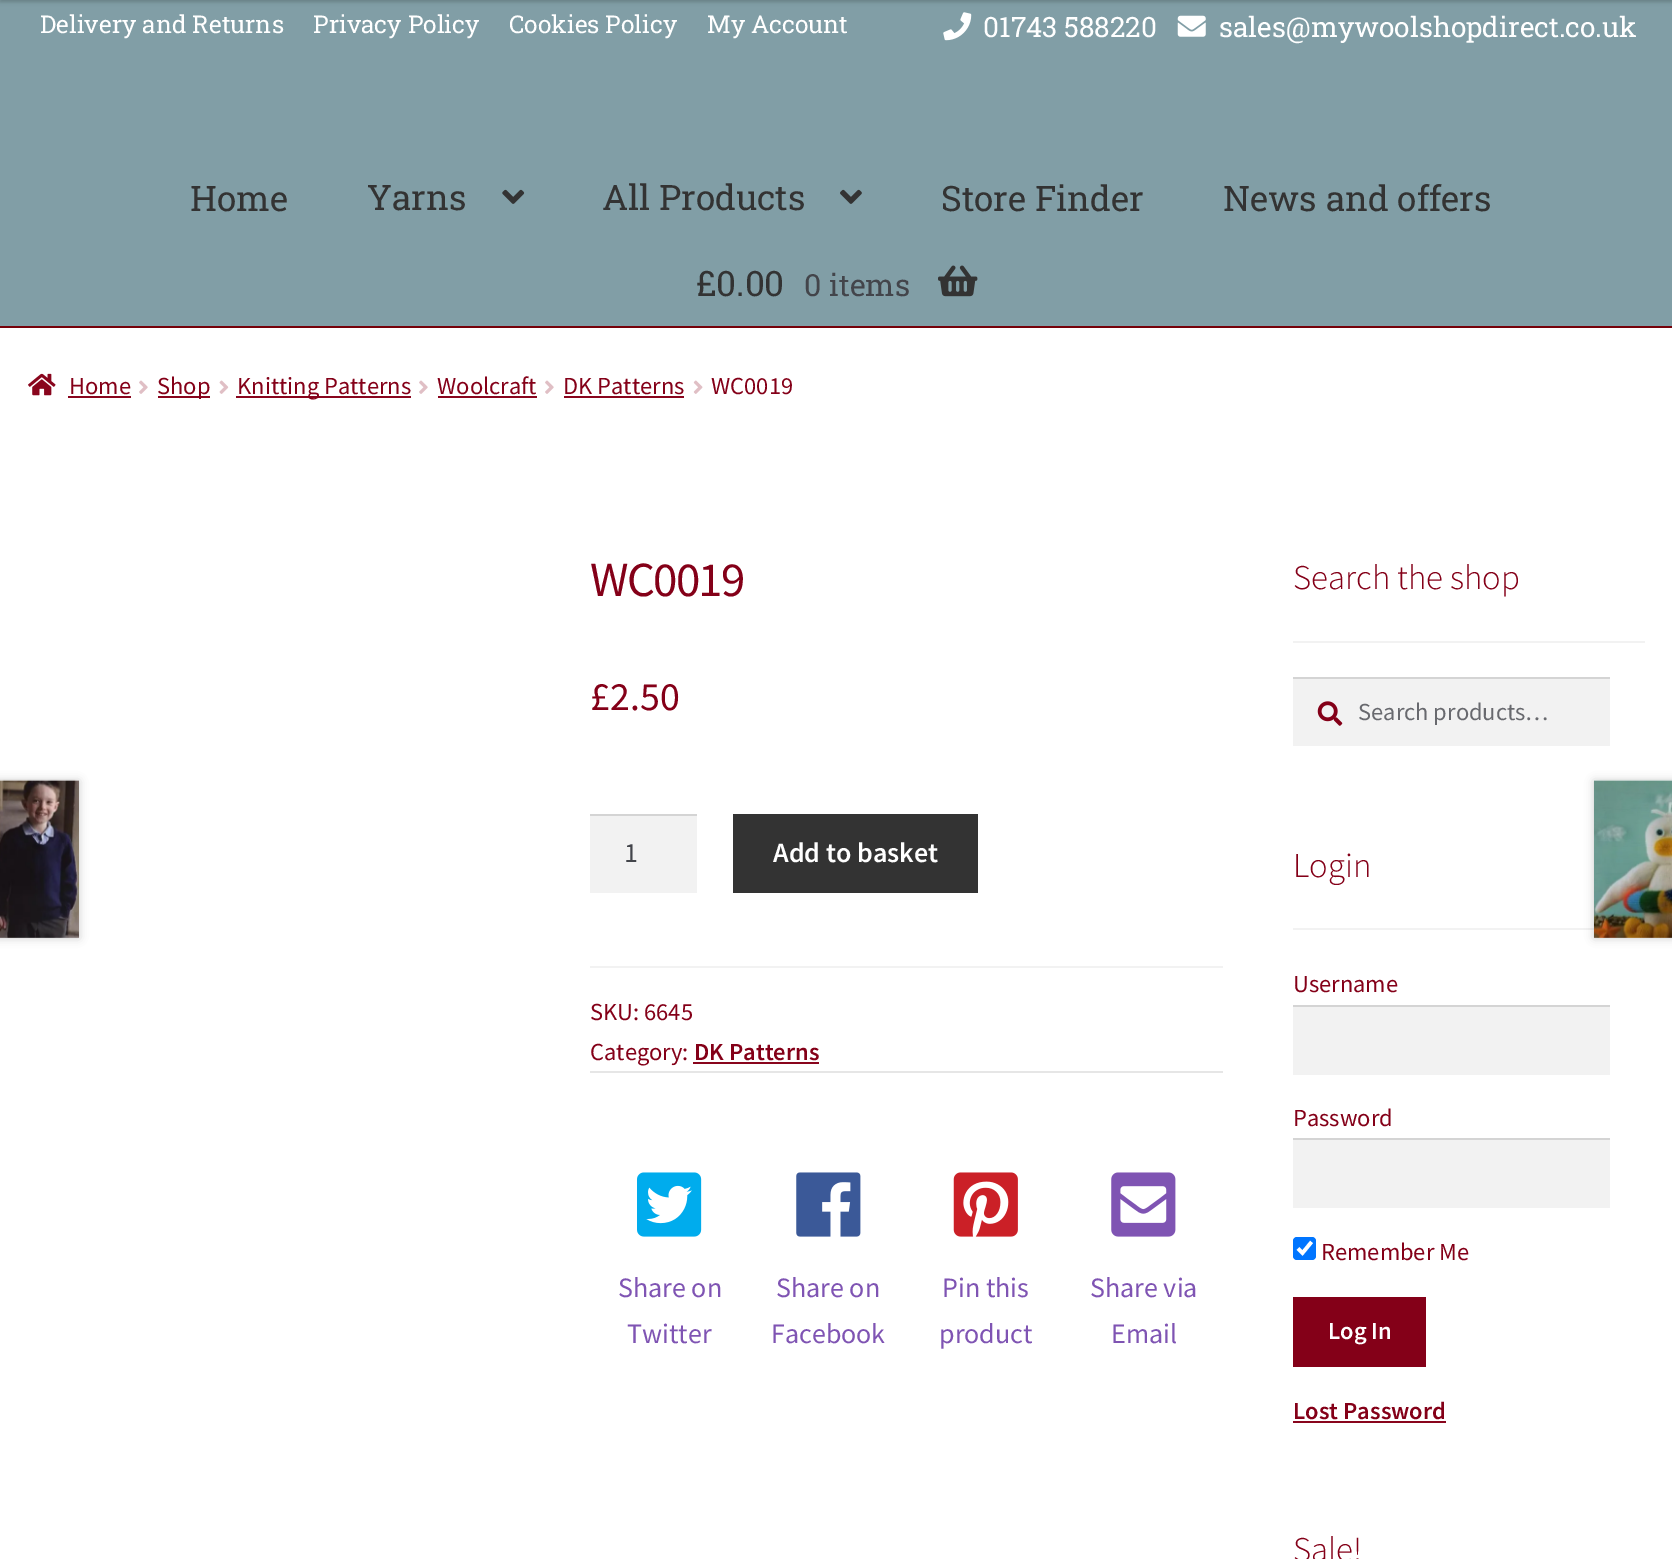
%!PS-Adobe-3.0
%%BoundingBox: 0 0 1672 1559
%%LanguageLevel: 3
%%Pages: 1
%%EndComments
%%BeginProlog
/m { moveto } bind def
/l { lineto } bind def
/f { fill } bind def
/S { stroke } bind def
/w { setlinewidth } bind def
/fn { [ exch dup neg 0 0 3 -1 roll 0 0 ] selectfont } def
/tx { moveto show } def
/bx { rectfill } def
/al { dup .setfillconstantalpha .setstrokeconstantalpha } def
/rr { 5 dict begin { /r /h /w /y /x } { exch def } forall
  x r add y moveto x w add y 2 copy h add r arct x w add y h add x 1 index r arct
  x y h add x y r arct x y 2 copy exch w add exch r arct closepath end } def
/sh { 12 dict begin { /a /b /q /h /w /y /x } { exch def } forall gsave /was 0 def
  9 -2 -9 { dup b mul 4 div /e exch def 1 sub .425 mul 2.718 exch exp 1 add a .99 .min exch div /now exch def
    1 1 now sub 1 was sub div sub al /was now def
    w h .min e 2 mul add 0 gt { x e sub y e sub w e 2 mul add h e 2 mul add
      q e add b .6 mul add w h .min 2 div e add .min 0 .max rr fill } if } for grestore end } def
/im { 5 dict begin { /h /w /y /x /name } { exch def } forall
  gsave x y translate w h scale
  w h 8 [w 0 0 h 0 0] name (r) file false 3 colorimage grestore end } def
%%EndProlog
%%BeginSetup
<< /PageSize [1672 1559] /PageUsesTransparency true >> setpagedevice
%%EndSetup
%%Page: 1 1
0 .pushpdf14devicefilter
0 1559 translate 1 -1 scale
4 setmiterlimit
1 setgray
0 0 1672 1559 bx
0.506 0.62 0.651 setrgbcolor
0 0 1672 326 bx
0 setgray
0 -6 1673 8 0 2 0.2 sh
/RobotoSlab-Regular 24.5 fn
1 setgray
(Delivery and Returns) 40 33 tx
(Privacy Policy) 313 33 tx
(Cookies Policy) 509 33 tx
(My Account) 707 33 tx
(image0.raw) 943 12 29 29 im
/RobotoSlab-Regular 28 fn
(01743 588220) 983 37 tx
(image1.raw) 1177 15 29 22 im
(sales@mywoolshopdirect.co.uk) 1219 37 tx
0.459 0 0.035 setrgbcolor
0 326 1672 2 bx
/RobotoSlab-Regular 35 fn
0.2 setgray
(Home) 190 211 tx
(Yarns) 367 210 tx
(image2.raw) 502 189 23 15 im
(All Products) 602 210 tx
(image3.raw) 840 189 22 15 im
(Store Finder) 941 211 tx
(News and offers) 1223 211 tx
(£0.00) 696 296 tx
/RobotoSlab-Regular 30.5 fn
0.263 0.271 0.294 setrgbcolor
(0 items) 804 296 tx
(image4.raw) 938 265 40 32 im
(image5.raw) 28 373 28 23 im
/SourceSansPro-Regular 24.5 fn
0.518 0 0.094 setrgbcolor
(Home) 69 394 tx
0.537 0.02 0.114 setrgbcolor
68 396 63 2 bx
(image6.raw) 139 380 9 14 im
158 396 52 2 bx
0.518 0 0.094 setrgbcolor
(Shop) 157 394 tx
(image7.raw) 219 380 10 14 im
0.537 0.02 0.114 setrgbcolor
236 396 175 2 bx
0.518 0 0.094 setrgbcolor
(Knitting Patterns) 237 394 tx
(image6.raw) 419 380 9 14 im
(Woolcraft) 437 394 tx
0.537 0.02 0.114 setrgbcolor
438 396 99 2 bx
(image6.raw) 545 380 9 14 im
0.518 0 0.094 setrgbcolor
(DK Patterns) 563 394 tx
0.537 0.02 0.114 setrgbcolor
564 396 120 2 bx
(image8.raw) 693 380 10 14 im
0.518 0 0.094 setrgbcolor
(WC0019) 711 394 tx
/SourceSansPro-Regular 49 fn
590 596 m -1.75 0 (WC0019) ashow
/SourceSansPro-Regular 40 fn
(£2.50) 590 710 tx
0.949 setgray
590 816 107 77 bx
0.831 setgray
590 814 107 2 bx
/SourceSansPro-Regular 28 fn
0.263 0.271 0.294 setrgbcolor
(1) 624 862 tx
0.2 setgray
733 814 245 79 bx
/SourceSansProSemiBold-SemiBold 28 fn
1 setgray
(Add to basket) 773 862 tx
0.949 setgray
590 966 633 2 bx
/SourceSansPro-Regular 24.5 fn
0.518 0 0.094 setrgbcolor
(SKU: 6645) 590 1020 tx
(Category:) 590 1060 tx
/SourceSansProSemiBold-SemiBold 24.5 fn
(DK Patterns) 694 1060 tx
0.537 0.02 0.114 setrgbcolor
693 1062 126 2 bx
0.902 setgray
590 1071 633 2 bx
(image9.raw) 637 1172 65 65 im
/SourceSansPro-Regular 28 fn
0.498 0.329 0.702 setrgbcolor
(Share on) 618 1297 tx
(Twitter) 627 1343 tx
(image10.raw) 796 1172 65 65 im
(Share on) 776 1297 tx
(Facebook) 771 1343 tx
(image11.raw) 953 1172 65 65 im
(Pin this) 942 1297 tx
(product) 939 1343 tx
(image12.raw) 1111 1172 65 65 im
(Share via) 1090 1297 tx
(Email) 1111 1343 tx
0 setgray
-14 781 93 157 0 4.5 0.2 sh
(image13.raw) 0 779 79 159 im
0.949 setgray
1293 928 301 2 bx
0 setgray
1594 781 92 157 0 4.5 0.2 sh
(image14.raw) 1594 779 78 159 im
0.949 setgray
1293 641 352 2 bx
/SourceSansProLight-Light 34.75 fn
0.518 0 0.094 setrgbcolor
(Search the shop) 1293 589 tx
0.949 setgray
1293 679 317 67 bx
(image15.raw) 1317 701 26 25 im
0.831 setgray
1293 677 317 2 bx
/SourceSansPro-Regular 24.5 fn
0.408 0.412 0.431 setrgbcolor
(Search products…) 1358 720 tx
/SourceSansProLight-Light 34.75 fn
0.518 0 0.094 setrgbcolor
(Login) 1293 877 tx
/SourceSansPro-Regular 24.5 fn
(Username) 1293 992 tx
0.949 setgray
1293 1007 317 68 bx
0.831 setgray
1293 1005 317 2 bx
0.518 0 0.094 setrgbcolor
(Password) 1293 1126 tx
0.949 setgray
1293 1140 317 68 bx
0.831 setgray
1293 1138 317 2 bx
0 0.459 1 setrgbcolor
1293 1237 23 23 4 rr f
1 setgray
3.6 w
1298 1248.5 m 1302.5 1253 l 1311.5 1242 l S
0.518 0 0.094 setrgbcolor
(Remember Me) 1321 1260 tx
1293 1297 133 70 bx
/SourceSansProSemiBold-SemiBold 24.5 fn
1 setgray
(Log In) 1328 1339 tx
0.518 0 0.094 setrgbcolor
(Lost Password) 1293 1419 tx
0.537 0.02 0.114 setrgbcolor
1293 1421 153 2 bx
/SourceSansProLight-Light 34.75 fn
0.518 0 0.094 setrgbcolor
(Sale!) 1293 1561 tx
.poppdf14devicefilter showpage
%%EOF
